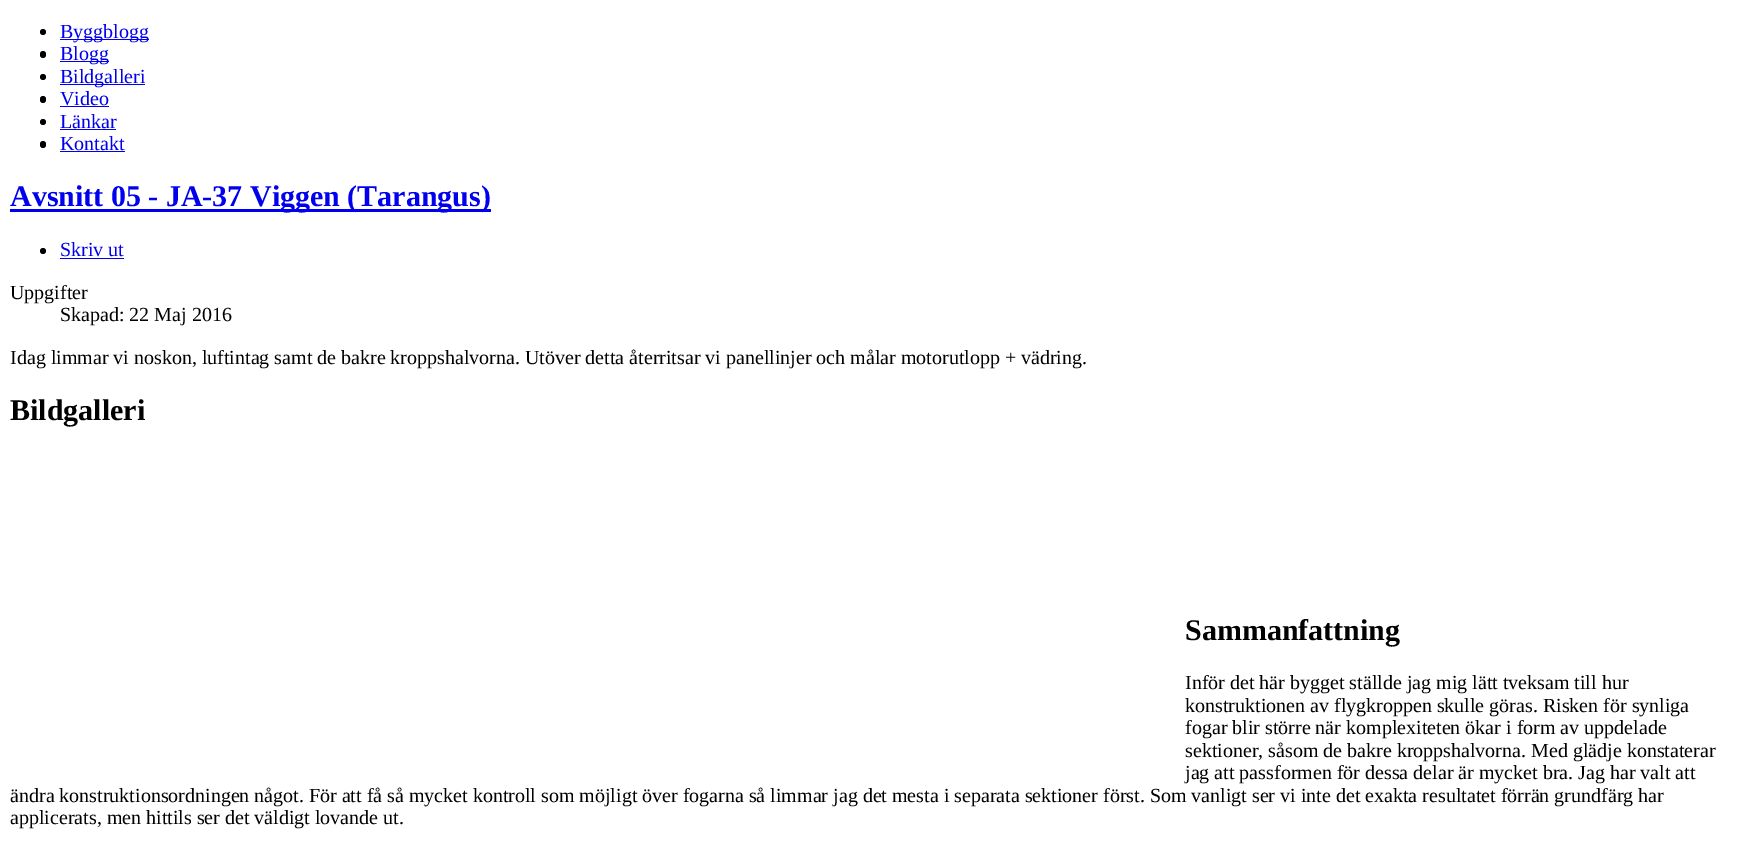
%!PS-Adobe-3.0
%%BoundingBox: 0 0 1742 843
%%LanguageLevel: 3
%%Pages: 1
%%EndComments
%%BeginProlog
/f { fill } bind def
/fn { [ exch dup neg 0 0 3 -1 roll 0 0 ] selectfont } def
/tx { moveto show } def
/bx { rectfill } def
/ci { newpath 0 360 arc closepath } def
/rr { 5 dict begin { /r /h /w /y /x } { exch def } forall
  x r add y moveto x w add y 2 copy h add r arct x w add y h add x 1 index r arct
  x y h add x y r arct x y 2 copy exch w add exch r arct closepath end } def
%%EndProlog
%%BeginSetup
<< /PageSize [1742 843] >> setpagedevice
%%EndSetup
%%Page: 1 1
0 843 translate 1 -1 scale
4 setmiterlimit
1 setgray
0 0 1742 843 bx
0 setgray
43 32 3 ci f
0 0 0.933 setrgbcolor
60 39 89 1 bx
/LiberationSerif-Regular 20 fn
(Byggblogg) 60 38 tx
0 setgray
40 51 6 7 3 rr f
0 0 0.933 setrgbcolor
60 61 49 1 bx
(Blogg) 60 60 tx
0 setgray
43 77 3 ci f
0 0 0.933 setrgbcolor
60 84 85 1 bx
(Bildgalleri) 60 83 tx
0 setgray
40 96 6 7 3 rr f
0 0 0.933 setrgbcolor
(Video) 60 105 tx
60 106 49 1 bx
0 setgray
43 122 3 ci f
0 0 0.933 setrgbcolor
(Länkar) 60 128 tx
60 129 56 1 bx
0 setgray
40 141 6 7 3 rr f
0 0 0.933 setrgbcolor
(Kontakt) 60 150 tx
60 151 65 1 bx
10 209 481 3 bx
/LiberationSerif-Bold 30 fn
(Avsnitt 05 - JA-37 Viggen \(Tarangus\)) 10 206 tx
0 setgray
43 251 3 ci f
/LiberationSerif-Regular 20 fn
0 0 0.933 setrgbcolor
(Skriv ut) 60 256 tx
60 258 64 1 bx
0 setgray
(Uppgifter) 10 299 tx
(Skapad: 22 Maj 2016) 60 321 tx
(Idag limmar vi noskon, luftintag samt de bakre kroppshalvorna. Utöver detta återritsar vi panellinjer och målar motorutlopp + vädring.) 10 364 tx
/LiberationSerif-Bold 30 fn
(Bildgalleri) 10 420 tx
(Sammanfattning) 1185 640 tx
/LiberationSerif-Regular 20 fn
(Inför det här bygget ställde jag mig lätt tveksam till hur) 1185 689 tx
(konstruktionen av flygkroppen skulle göras. Risken för synliga) 1185 712 tx
(fogar blir större när komplexiteten ökar i form av uppdelade) 1185 734 tx
(sektioner, såsom de bakre kroppshalvorna. Med glädje konstaterar) 1185 757 tx
(jag att passformen för dessa delar är mycket bra. Jag har valt att) 1185 779 tx
(ändra konstruktionsordningen något. För att få så mycket kontroll som möjligt över fogarna så limmar jag det mesta i separata sektioner först. Som vanligt ser vi inte det exakta resultatet förrän grundfärg har) 10 802 tx
(applicerats, men hittils ser det väldigt lovande ut.) 10 824 tx
showpage
%%EOF
